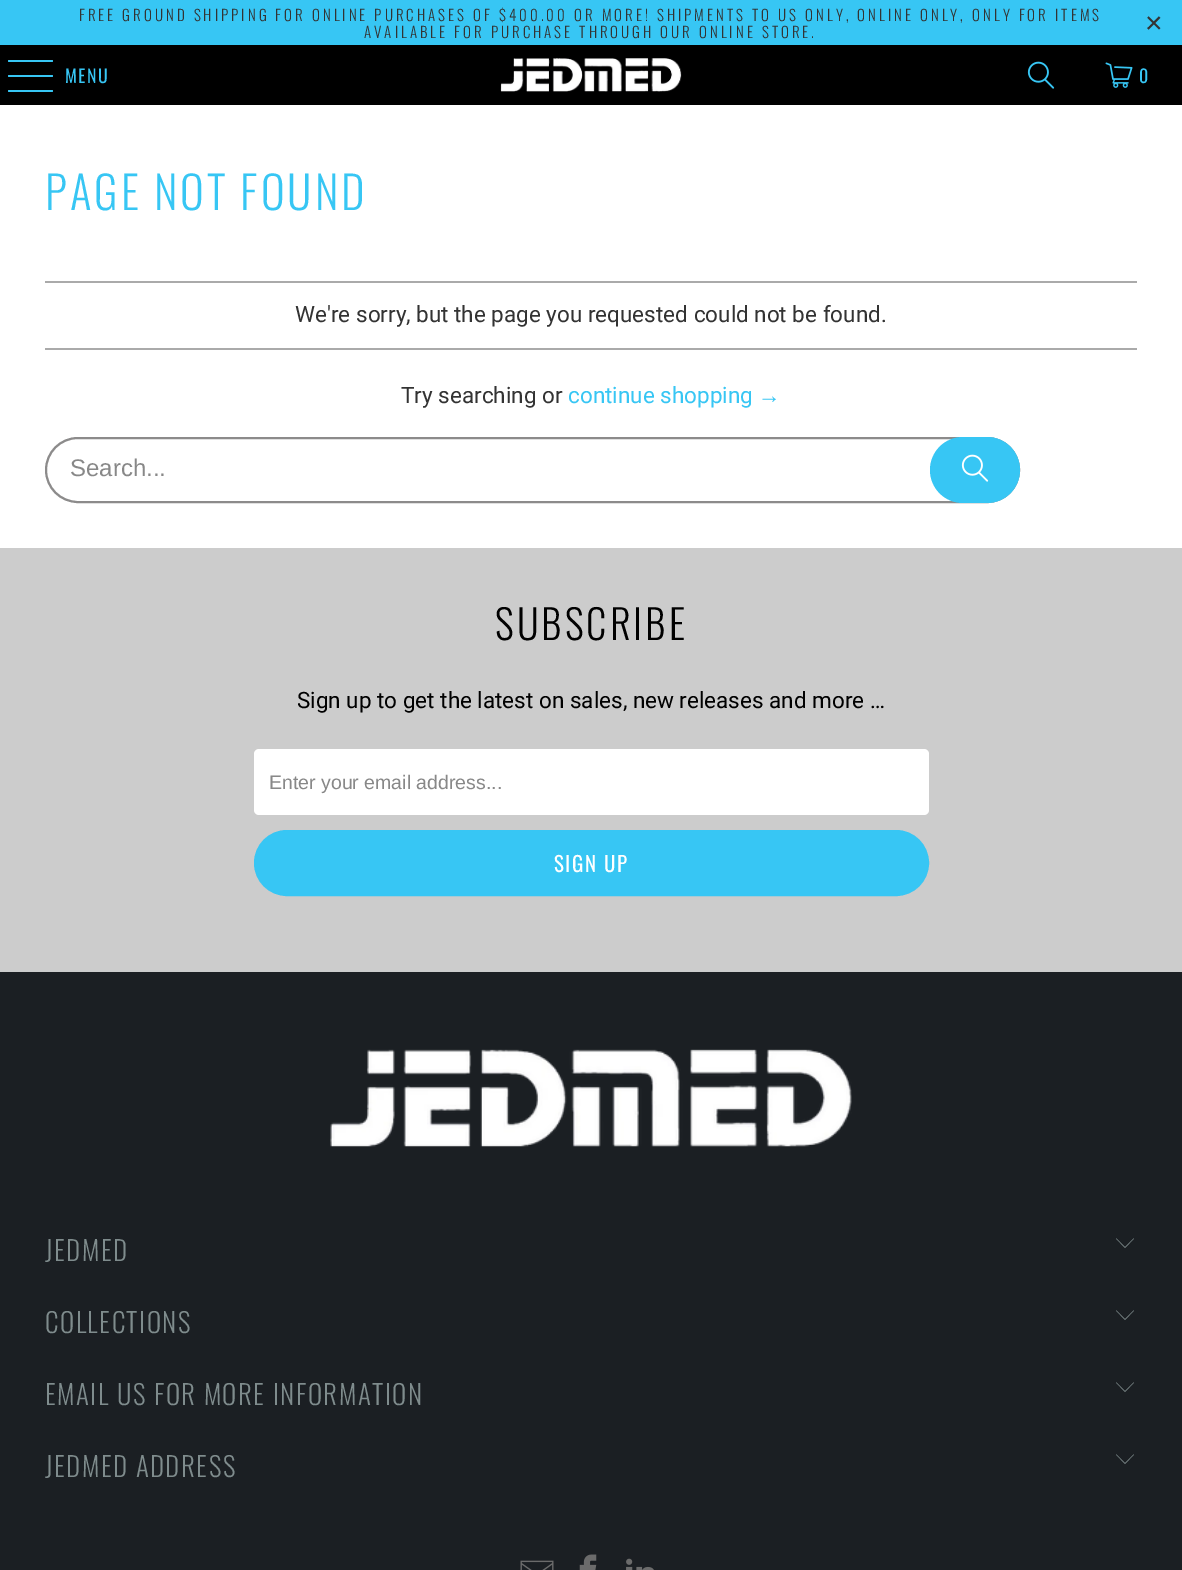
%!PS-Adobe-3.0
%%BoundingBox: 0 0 1182 1570
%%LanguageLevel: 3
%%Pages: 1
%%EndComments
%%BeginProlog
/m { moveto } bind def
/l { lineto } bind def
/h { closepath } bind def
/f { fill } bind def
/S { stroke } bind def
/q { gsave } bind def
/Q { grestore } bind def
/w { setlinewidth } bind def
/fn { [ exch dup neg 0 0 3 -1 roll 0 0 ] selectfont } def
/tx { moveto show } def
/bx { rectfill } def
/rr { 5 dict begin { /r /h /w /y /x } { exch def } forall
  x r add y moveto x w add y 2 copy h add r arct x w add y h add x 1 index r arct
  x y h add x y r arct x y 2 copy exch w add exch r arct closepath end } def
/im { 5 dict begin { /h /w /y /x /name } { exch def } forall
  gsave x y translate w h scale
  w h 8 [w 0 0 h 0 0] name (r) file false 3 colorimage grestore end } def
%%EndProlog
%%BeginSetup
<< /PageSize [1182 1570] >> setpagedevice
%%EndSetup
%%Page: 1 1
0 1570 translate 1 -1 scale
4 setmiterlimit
1 setgray
0 0 1182 1570 bx
0.216 0.776 0.957 setrgbcolor
0 0 1182 45 bx
/Oswald-Light 15 fn
0.2 setgray
79 21 m 3 0 (FREE GROUND SHIPPING FOR ONLINE PURCHASES OF $400.00 OR MORE! SHIPMENTS TO US ONLY, ONLINE ONLY, ONLY FOR ITEMS) ashow
364 38 m 3 0 (AVAILABLE FOR PURCHASE THROUGH OUR ONLINE STORE.) ashow
/LiberationSans-Regular 30 fn
1145 33 m 3 0 (×) ashow
0 setgray
0 45 1182 60 bx
0.216 0.776 0.957 setrgbcolor
8 60 45 2 1 rr f
8 75 45 2 1 rr f
8 90 45 2 1 rr f
/Oswald-Regular 18 fn
65 83 m 1.5 0 (MENU) ashow
(image0.raw) 500 58 182 34 im
(image1.raw) 1027 61 28 28 im
(image2.raw) 1105 62 28 26 im
1139 83 m 1.5 0 (0) ashow
/Oswald-Light 45 fn
45 210 m 3 0 (PAGE NOT FOUND) ashow
0.667 setgray
45 281 1092 2 bx
45 348 1092 2 bx
/Roboto-Regular 22.5 fn
0.2 setgray
(We're sorry, but the page you requested could not be found.) 295 322 tx
(Try searching or) 401 403 tx
0.216 0.776 0.957 setrgbcolor
(continue shopping) 568 403 tx
/LiberationSans-Regular 22.5 fn
(→) 758 403 tx
0.549 0.545 0.545 setrgbcolor
2 w
46 438 973 64 32 rr S
/LiberationSans-Regular 24 fn
0.533 setgray
(Search...) 70 476 tx
0.216 0.776 0.957 setrgbcolor
930 437 90 66 33 rr f
(image3.raw) 961 454 28 28 im
0.8 setgray
0 548 1182 424 bx
/Oswald-Light 40.5 fn
0 setgray
495 640 m 3 0 (SUBSCRIBE) ashow
/Roboto-Regular 22.5 fn
(Sign up to get the latest on sales, new releases and more …) 297 708 tx
1 setgray
254 749 675 66 5 rr f
/LiberationSans-Regular 19.5 fn
0.533 setgray
(Enter your email address...) 269 789 tx
0.216 0.776 0.957 setrgbcolor
255 831 673 64 32 rr q f Q
S
/Oswald-Regular 21 fn
1 setgray
554 872 m 1.5 0 (SIGN UP) ashow
0.106 0.122 0.137 setrgbcolor
0 972 1182 598 bx
(image4.raw) 330 1049 522 98 im
/Oswald-Light 27 fn
0.498 0.549 0.553 setrgbcolor
45 1261 m 1.5 0 (JEDMED) ashow
1125 1248 m 1116 1238.5 l 1116.5 1238.5 l 1125 1247 l 1133.5 1238.5 l 1134 1238.5 l h f
45 1333 m 1.5 0 (COLLECTIONS) ashow
1125 1320 m 1116 1310.5 l 1116.5 1310.5 l 1125 1319 l 1133.5 1310.5 l 1134 1310.5 l h f
45 1405 m 1.5 0 (EMAIL US FOR MORE INFORMATION) ashow
1125 1392 m 1116 1382.5 l 1116.5 1382.5 l 1125 1391 l 1133.5 1382.5 l 1134 1382.5 l h f
45 1477 m 1.5 0 (JEDMED ADDRESS) ashow
1125 1464 m 1116 1454.5 l 1116.5 1454.5 l 1125 1463 l 1133.5 1454.5 l 1134 1454.5 l h f
(image5.raw) 520 1560 34 10 im
(image6.raw) 579 1554 18 16 im
(image7.raw) 626 1558 28 12 im
showpage
%%EOF
